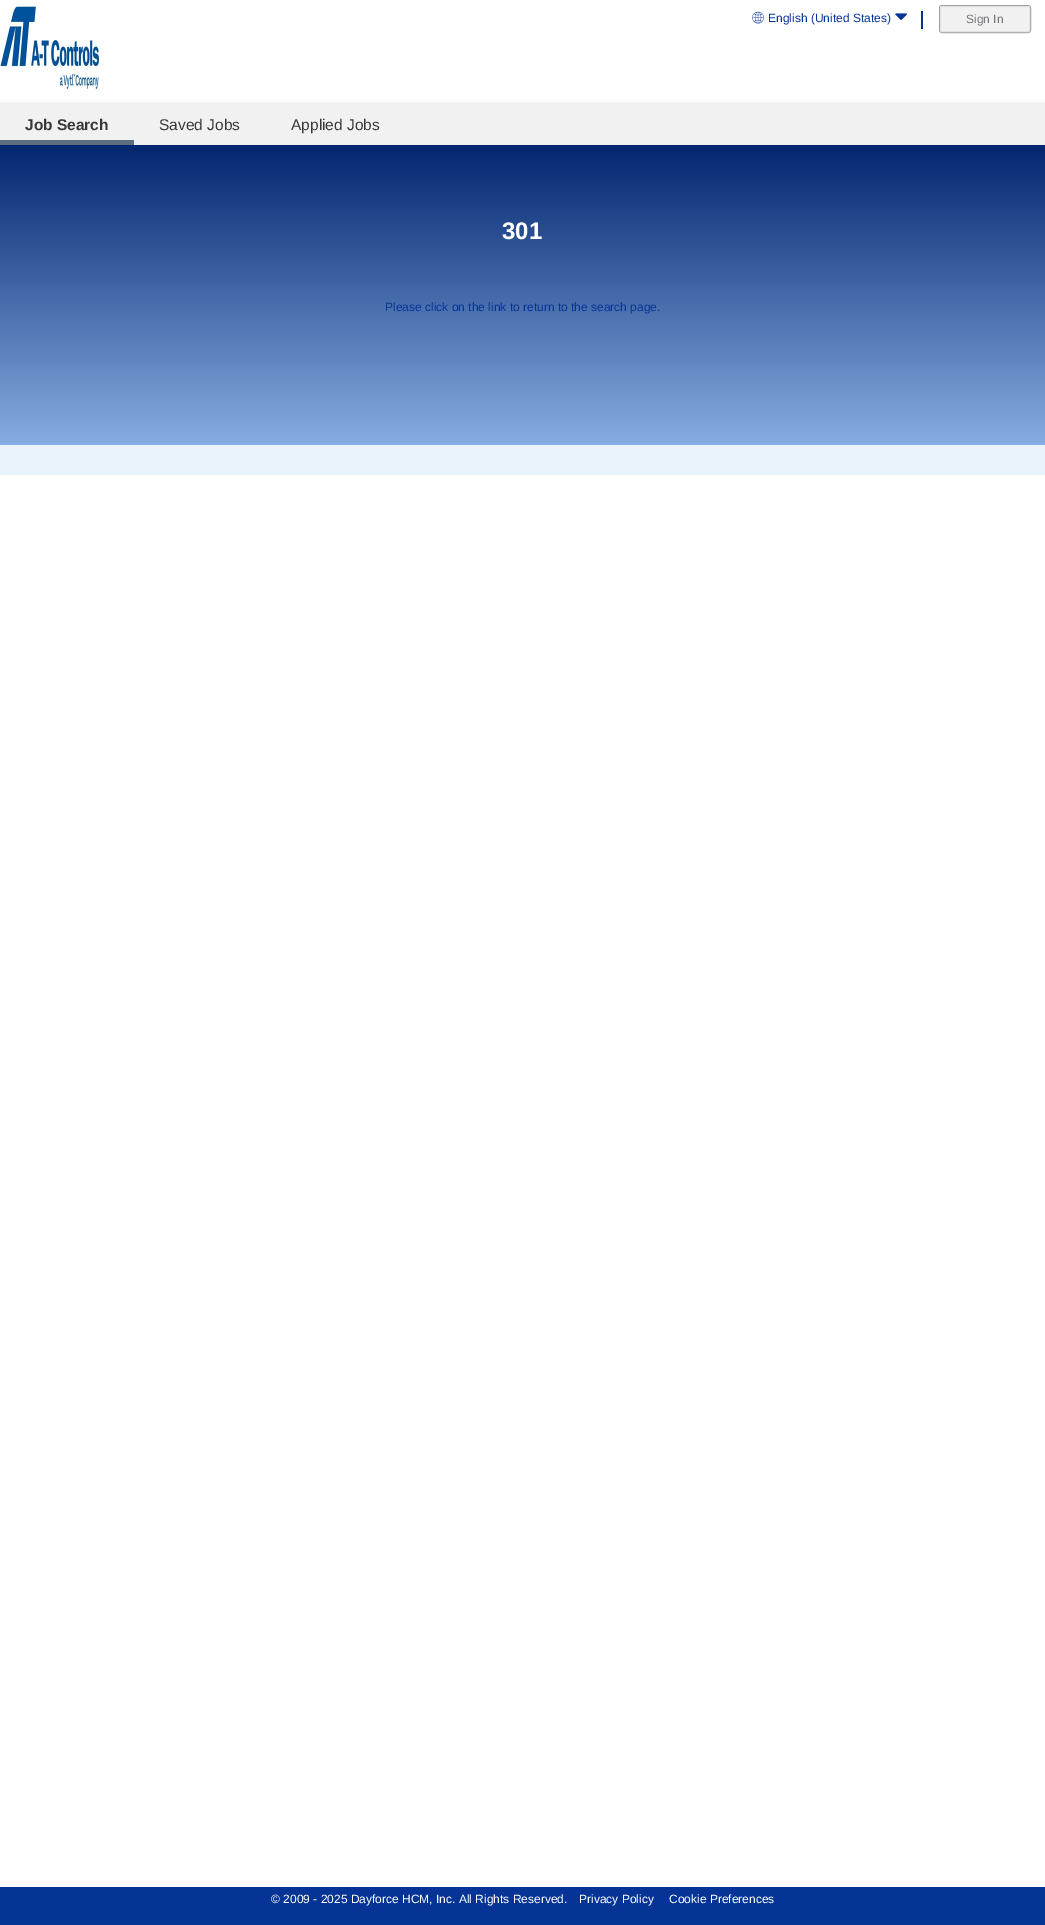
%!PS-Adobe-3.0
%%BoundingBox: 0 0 1045 1925
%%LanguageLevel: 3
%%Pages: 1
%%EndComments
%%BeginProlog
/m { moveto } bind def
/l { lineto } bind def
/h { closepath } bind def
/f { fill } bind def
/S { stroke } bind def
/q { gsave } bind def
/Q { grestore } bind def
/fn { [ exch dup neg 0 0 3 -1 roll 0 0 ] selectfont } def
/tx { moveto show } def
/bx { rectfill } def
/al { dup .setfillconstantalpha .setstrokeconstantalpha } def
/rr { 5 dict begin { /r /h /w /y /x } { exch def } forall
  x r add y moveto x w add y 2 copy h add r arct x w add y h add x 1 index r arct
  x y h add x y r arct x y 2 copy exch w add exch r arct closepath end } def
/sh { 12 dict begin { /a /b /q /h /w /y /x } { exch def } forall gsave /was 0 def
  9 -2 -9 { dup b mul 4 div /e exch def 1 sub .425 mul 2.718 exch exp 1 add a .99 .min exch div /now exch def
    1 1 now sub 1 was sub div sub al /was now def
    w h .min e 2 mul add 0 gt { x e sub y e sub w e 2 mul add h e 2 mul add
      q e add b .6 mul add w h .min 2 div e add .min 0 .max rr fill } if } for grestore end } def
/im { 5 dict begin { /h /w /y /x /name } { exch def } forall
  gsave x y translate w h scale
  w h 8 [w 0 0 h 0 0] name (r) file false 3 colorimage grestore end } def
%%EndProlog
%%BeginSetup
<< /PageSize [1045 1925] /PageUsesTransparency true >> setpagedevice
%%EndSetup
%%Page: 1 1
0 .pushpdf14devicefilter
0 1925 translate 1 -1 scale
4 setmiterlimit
1 setgray
0 0 1045 1925 bx
(image0.raw) 0 4 100 92 im
(image1.raw) 752 11 12 13 im
/LiberationSans-Regular 12 fn
0.02 0.2 0.588 setrgbcolor
(English \(United States\)) 768 22 tx
(image2.raw) 895 13 12 7 im
921 11 2 18 bx
0.62 setgray
939.5 5.5 91 27 2.5 rr S
0.945 0.945 0.949 setrgbcolor
940.5 6.5 89 25 1.5 rr q f Q
0.886 0.89 0.894 setrgbcolor
S
0.455 0.463 0.475 setrgbcolor
(Sign In) 966 23 tx
0 setgray
0 105 1045 42 0 2.5 0.2 sh
0.945 0.945 0.949 setrgbcolor
0 103 1045 42 bx
0.357 0.431 0.502 setrgbcolor
0 140 134 5 bx
/LiberationSans-Bold 15.5 fn
0.224 0.22 0.224 setrgbcolor
(Job Search) 25 130 tx
/LiberationSans-Regular 15.5 fn
(Saved Jobs) 159 130 tx
(Applied Jobs) 291 130 tx
q 0 145 m 1045 145 l 1045 445 l 0 445 l h clip newpath
<< /ShadingType 2 /ColorSpace /DeviceRGB /Coords [523 145 523 445] /Extend [true true] /Function << /FunctionType 2 /Domain [0 1] /C0 [0.012 0.149 0.435] /C1 [0.522 0.678 0.886] /N 1 >> >> shfill Q
/LiberationSans-Bold 24 fn
1 setgray
(301) 502 239 tx
/LiberationSans-Regular 12 fn
0.02 0.2 0.588 setrgbcolor
(Please click on the link to return to the search page.) 385 311 tx
0.914 0.953 0.988 setrgbcolor
0 445 1045 30 bx
0.02 0.2 0.588 setrgbcolor
0 1887 1045 38 bx
1 setgray
(© 2009 - 2025 Dayforce HCM, Inc. All Rights Reserved.) 271 1903 tx
(Privacy Policy) 579 1903 tx
(Cookie Preferences) 669 1903 tx
.poppdf14devicefilter showpage
%%EOF
